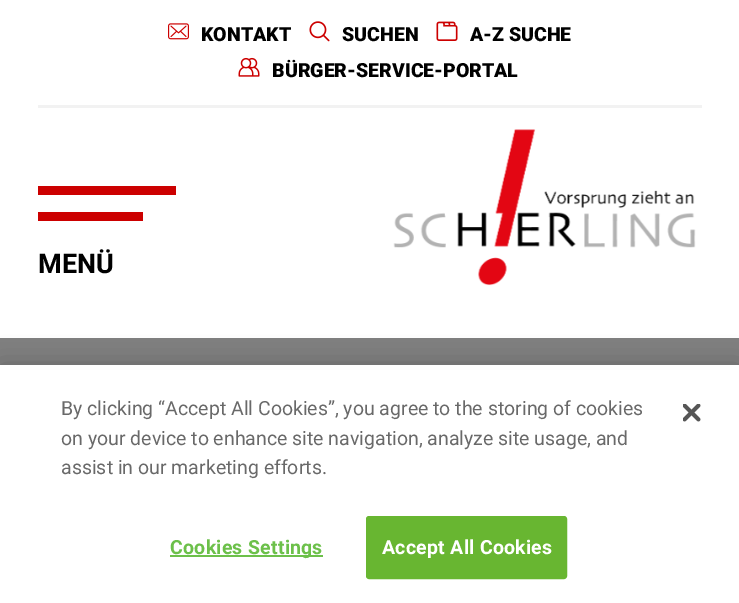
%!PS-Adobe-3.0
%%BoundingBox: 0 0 739 603
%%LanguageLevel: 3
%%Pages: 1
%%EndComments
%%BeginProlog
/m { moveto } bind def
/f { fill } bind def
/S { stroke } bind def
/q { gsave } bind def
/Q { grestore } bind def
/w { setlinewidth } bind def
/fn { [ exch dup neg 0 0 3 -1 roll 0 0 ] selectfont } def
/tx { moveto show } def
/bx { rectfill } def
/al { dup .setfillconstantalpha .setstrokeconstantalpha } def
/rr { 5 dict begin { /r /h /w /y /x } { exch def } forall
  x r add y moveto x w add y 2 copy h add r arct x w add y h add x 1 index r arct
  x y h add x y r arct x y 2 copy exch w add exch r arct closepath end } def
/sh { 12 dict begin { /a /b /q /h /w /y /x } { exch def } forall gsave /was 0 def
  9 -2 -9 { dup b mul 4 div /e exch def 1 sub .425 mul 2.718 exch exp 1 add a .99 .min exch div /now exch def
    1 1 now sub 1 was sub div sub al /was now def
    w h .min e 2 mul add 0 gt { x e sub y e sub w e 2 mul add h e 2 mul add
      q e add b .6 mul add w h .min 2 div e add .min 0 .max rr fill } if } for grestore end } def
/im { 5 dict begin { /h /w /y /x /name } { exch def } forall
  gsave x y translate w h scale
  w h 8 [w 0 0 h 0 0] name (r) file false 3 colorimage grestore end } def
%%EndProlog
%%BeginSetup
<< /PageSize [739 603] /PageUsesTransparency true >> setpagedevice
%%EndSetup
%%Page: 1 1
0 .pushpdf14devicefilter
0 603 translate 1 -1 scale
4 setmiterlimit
0.502 setgray
0 0 739 603 bx
1 setgray
0 0 739 338 bx
0.949 setgray
38 105 664 3 bx
(image0.raw) 168 23 21 17 im
/Roboto-Black 19.5 fn
0 setgray
(KONTAKT) 201 41 tx
(image1.raw) 309 21 21 21 im
(SUCHEN) 342 41 tx
(image2.raw) 436 21 22 20 im
(A-Z SUCHE) 470 41 tx
(image3.raw) 238 57 22 20 im
(BÜRGER-SERVICE-PORTAL) 272 77 tx
0.8 0 0 setrgbcolor
38 186 138 9 bx
38 212 105 9 bx
/Roboto-Bold 27 fn
0 setgray
(MENÜ) 38 273 tx
(image4.raw) 393 129 303 157 im
0 365 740 238 0 13.5 0.2 sh
1 setgray
0 365 739 238 bx
/Roboto-Regular 19.5 fn
0.412 setgray
(By clicking “Accept All Cookies”, you agree to the storing of cookies) 61 415 tx
(on your device to enhance site navigation, analyze site usage, and) 61 445 tx
(assist in our marketing efforts.) 61 474 tx
0.424 0.753 0.29 setrgbcolor
170 555 153 2 bx
/Roboto-Bold 19.5 fn
170 554 m 0.25 0 (Cookies Settings) ashow
0.408 0.714 0.192 setrgbcolor
367 517 199 61 2 rr q f Q
2 w
S
1 setgray
382 554 m 0.25 0 (Accept All Cookies) ashow
(image5.raw) 683 404 18 18 im
.poppdf14devicefilter showpage
%%EOF
